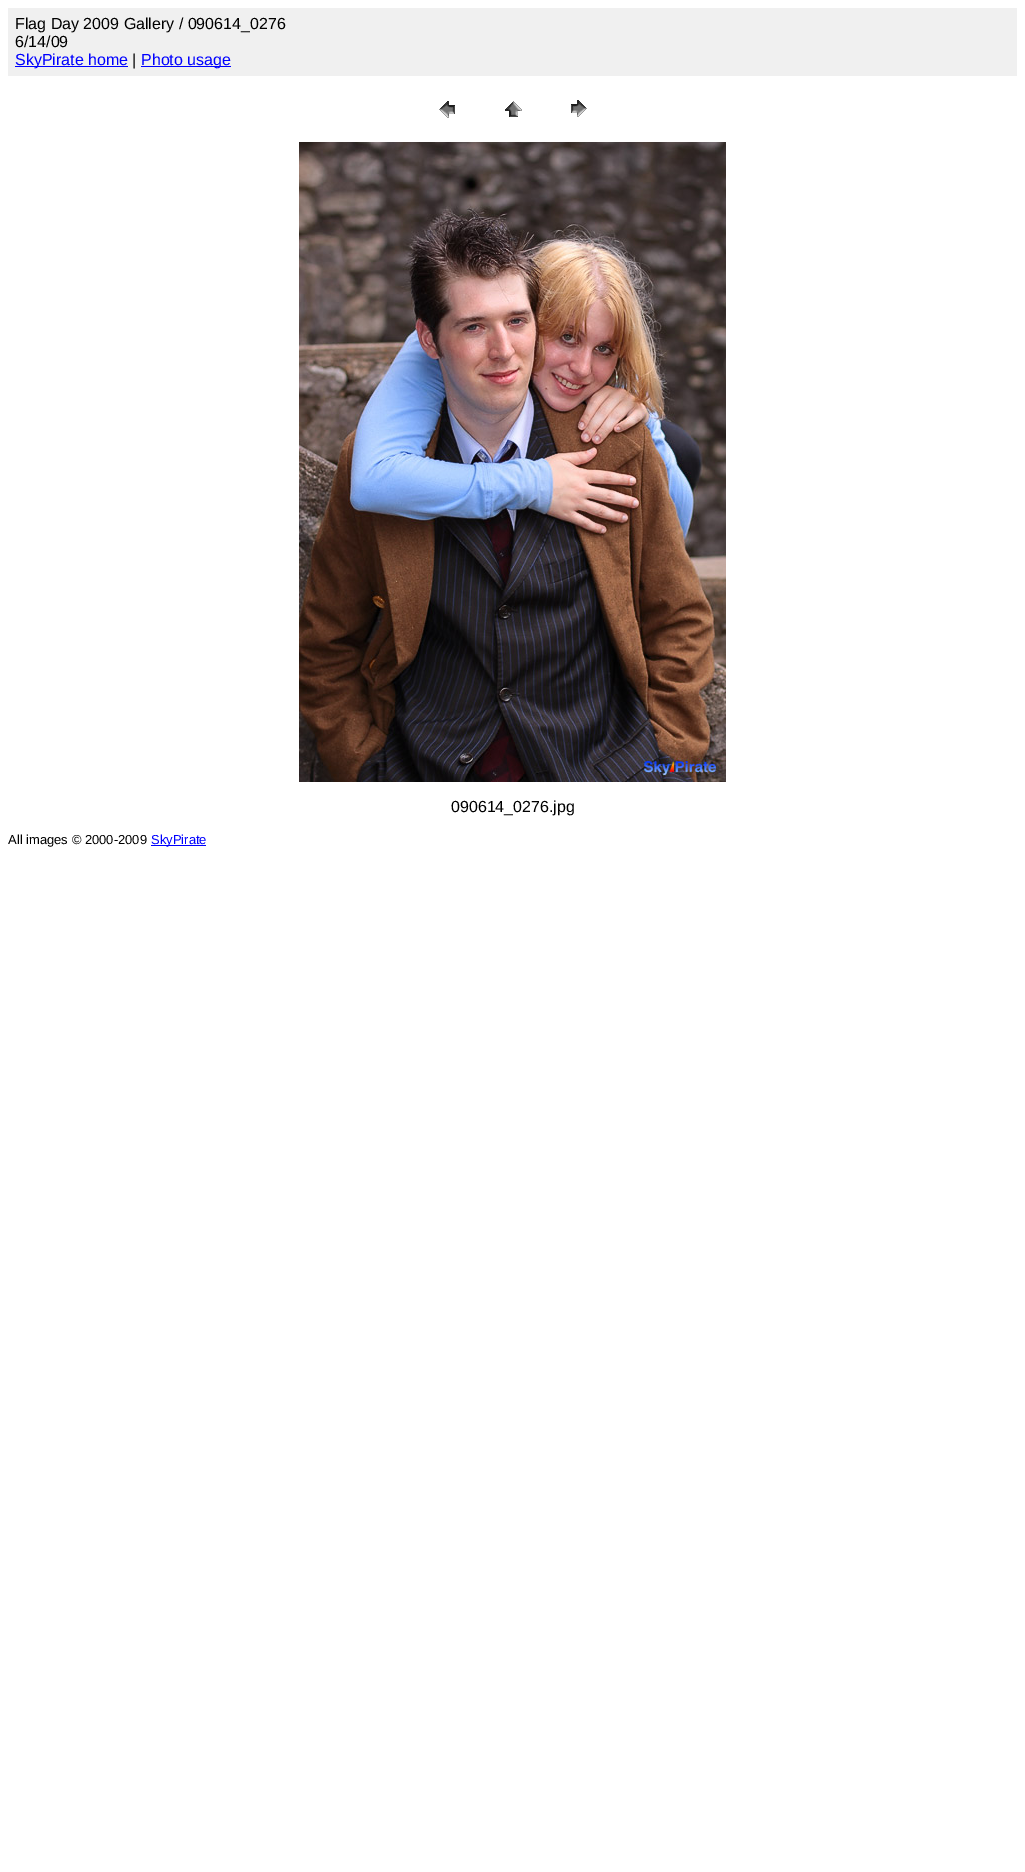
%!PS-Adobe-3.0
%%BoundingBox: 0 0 1025 1872
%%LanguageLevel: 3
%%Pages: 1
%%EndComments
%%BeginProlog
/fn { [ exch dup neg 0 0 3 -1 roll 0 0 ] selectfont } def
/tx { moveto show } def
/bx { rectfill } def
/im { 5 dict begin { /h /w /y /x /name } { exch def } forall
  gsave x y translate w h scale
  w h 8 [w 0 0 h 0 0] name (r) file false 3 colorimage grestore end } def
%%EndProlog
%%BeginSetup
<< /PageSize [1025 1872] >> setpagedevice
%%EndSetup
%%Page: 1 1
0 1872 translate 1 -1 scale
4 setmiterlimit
1 setgray
0 0 1025 1872 bx
0.941 setgray
8 8 1009 68 bx
/LiberationSans-Regular 16 fn
0 setgray
(Flag Day 2009 Gallery / 090614_0276) 15 29 tx
(6/14/09) 15 47 tx
0 0 1 setrgbcolor
15 66 113 1 bx
(SkyPirate home) 15 65 tx
0 setgray
(|) 132 65 tx
0 0 1 setrgbcolor
141 66 90 1 bx
(Photo usage) 141 65 tx
(image0.raw) 439 101 16 17 im
(image1.raw) 505 101 17 16 im
(image2.raw) 571 100 16 17 im
(image3.raw) 299 142 427 640 im
0 setgray
(090614_0276.jpg) 451 812 tx
/LiberationSans-Regular 13 fn
(All images © 2000-2009) 8 844 tx
0 0 1 setrgbcolor
151 845 55 1 bx
(SkyPirate) 151 844 tx
showpage
%%EOF
